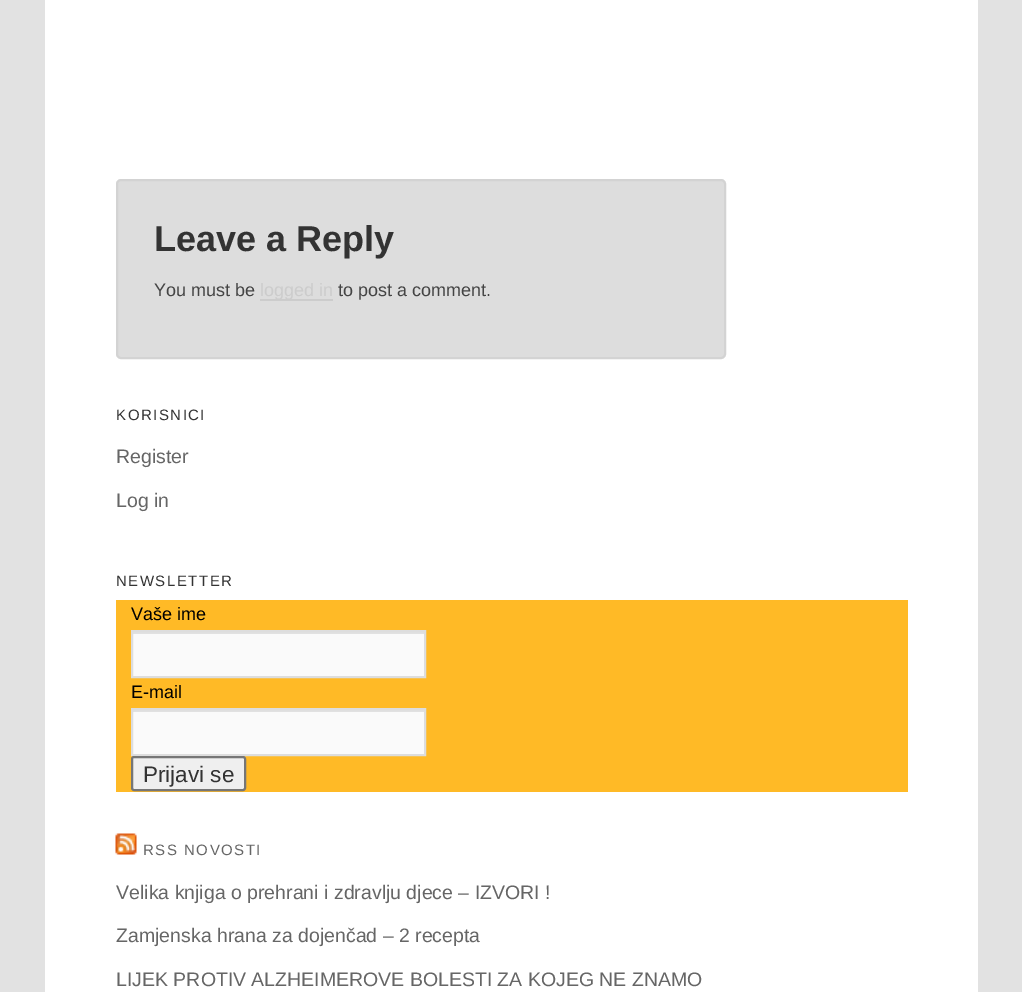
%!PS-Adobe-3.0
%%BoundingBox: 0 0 1022 992
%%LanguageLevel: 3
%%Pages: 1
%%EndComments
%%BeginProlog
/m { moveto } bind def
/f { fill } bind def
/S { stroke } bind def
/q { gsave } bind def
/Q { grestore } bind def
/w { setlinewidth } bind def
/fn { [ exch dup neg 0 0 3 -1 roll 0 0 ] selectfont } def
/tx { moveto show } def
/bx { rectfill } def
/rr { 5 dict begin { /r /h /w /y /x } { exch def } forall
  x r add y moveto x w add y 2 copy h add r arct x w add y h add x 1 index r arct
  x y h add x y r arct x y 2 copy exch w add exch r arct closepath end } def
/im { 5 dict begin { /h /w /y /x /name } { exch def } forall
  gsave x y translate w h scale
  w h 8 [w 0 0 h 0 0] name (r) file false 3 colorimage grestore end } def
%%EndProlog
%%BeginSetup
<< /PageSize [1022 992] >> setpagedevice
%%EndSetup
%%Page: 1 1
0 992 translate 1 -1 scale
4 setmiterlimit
0.886 setgray
0 0 1022 992 bx
1 setgray
45 0 933 992 bx
0.867 setgray
117 180 608 178 4 rr q f Q
0.827 setgray
2 w
S
/LiberationSans-Bold 36 fn
0.2 setgray
(Leave a Reply) 154 251 tx
/LiberationSans-Regular 18 fn
0.267 setgray
(You must be) 154 296 tx
0.8 setgray
260 299 73 2 bx
(logged in) 260 296 tx
0.267 setgray
(to post a comment.) 338 296 tx
/LiberationSans-Regular 15 fn
0.2 setgray
116 420 m 1.5 0 (KORISNICI) ashow
/LiberationSans-Regular 19.5 fn
0.4 setgray
(Register) 116 463 tx
(Log in) 116 507 tx
/LiberationSans-Regular 15 fn
0.2 setgray
116 586 m 1.5 0 (NEWSLETTER) ashow
1 0.729 0.149 setrgbcolor
116 600 792 192 bx
/LiberationSans-Regular 18 fn
0 setgray
(Vaše ime) 131 620 tx
0.98 setgray
133 634 291 42 bx
0.882 setgray
132 632 293 2 bx
0.867 setgray
132 631 293 46 rectstroke
0 setgray
(E-mail) 131 698 tx
0.98 setgray
133 712 291 42 bx
0.882 setgray
132 710 293 2 bx
0.867 setgray
132 709 293 46 rectstroke
0.937 setgray
132 757 113 33 2 rr q f Q
0.463 setgray
S
/LiberationSans-Regular 22.5 fn
0.2 setgray
(Prijavi se) 143 782 tx
(image0.raw) 115 833 22 22 im
/LiberationSans-Regular 15 fn
0.4 setgray
143 855 m 1.5 0 (RSS NOVOSTI) ashow
/LiberationSans-Regular 19.5 fn
(Velika knjiga o prehrani i zdravlju djece – IZVORI !) 116 899 tx
(Zamjenska hrana za dojenčad – 2 recepta) 116 942 tx
(LIJEK PROTIV ALZHEIMEROVE BOLESTI ZA KOJEG NE ZNAMO) 116 986 tx
showpage
%%EOF
